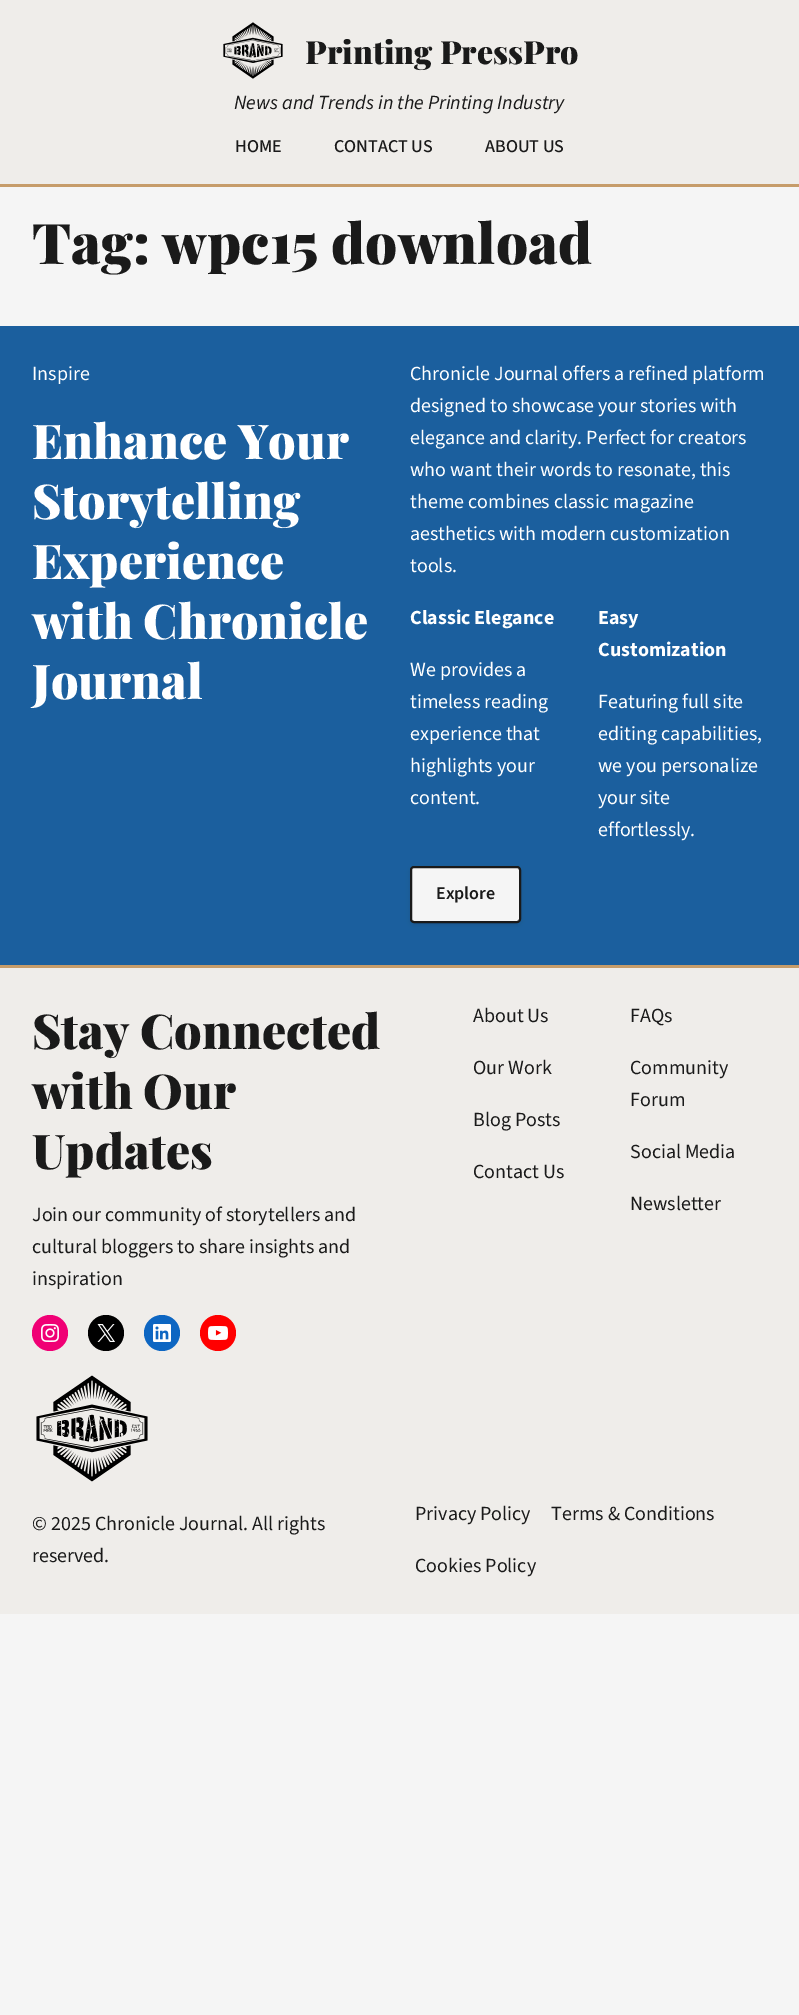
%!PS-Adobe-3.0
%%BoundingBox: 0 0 799 2015
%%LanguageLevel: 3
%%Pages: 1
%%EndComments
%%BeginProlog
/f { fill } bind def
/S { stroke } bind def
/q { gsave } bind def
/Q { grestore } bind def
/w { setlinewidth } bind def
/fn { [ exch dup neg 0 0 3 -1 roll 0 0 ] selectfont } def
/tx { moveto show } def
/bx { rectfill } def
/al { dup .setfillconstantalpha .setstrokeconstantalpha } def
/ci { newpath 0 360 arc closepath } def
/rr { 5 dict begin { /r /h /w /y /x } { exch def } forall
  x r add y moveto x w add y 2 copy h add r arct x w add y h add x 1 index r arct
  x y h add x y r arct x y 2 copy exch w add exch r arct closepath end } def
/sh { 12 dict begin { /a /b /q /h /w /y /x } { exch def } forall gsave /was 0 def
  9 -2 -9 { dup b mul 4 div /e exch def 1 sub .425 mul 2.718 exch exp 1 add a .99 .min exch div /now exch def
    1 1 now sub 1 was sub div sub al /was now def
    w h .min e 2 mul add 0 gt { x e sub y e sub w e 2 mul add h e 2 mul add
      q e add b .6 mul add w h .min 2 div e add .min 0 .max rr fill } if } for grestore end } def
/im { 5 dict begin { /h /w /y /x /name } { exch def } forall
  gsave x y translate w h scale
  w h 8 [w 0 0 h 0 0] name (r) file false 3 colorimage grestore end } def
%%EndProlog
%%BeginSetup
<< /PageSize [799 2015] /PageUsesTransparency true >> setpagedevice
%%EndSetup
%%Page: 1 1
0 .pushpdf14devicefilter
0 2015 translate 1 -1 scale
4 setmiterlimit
0.961 setgray
0 0 799 2015 bx
0.937 0.929 0.918 setrgbcolor
0 0 799 184 bx
0.776 0.612 0.416 setrgbcolor
0 184 799 3 bx
(image0.raw) 223 22 60 57 im
/PlayfairDisplay-Black 32 fn
0.102 setgray
(Printing PressPro) 305 64 tx
/SourceSans3-Italic 20 fn
(News and Trends in the Printing Industry) 234 109 tx
/SourceSans3-Medium 18 fn
(HOME) 235 152 tx
(CONTACT US) 334 152 tx
(ABOUT US) 485 152 tx
/PlayfairDisplay-Black 56 fn
(Tag: wpc15 download) 32 264 tx
0.106 0.373 0.62 setrgbcolor
0 326 799 639 bx
/SourceSans3-Regular 20 fn
1 setgray
(Inspire) 32 380 tx
/PlayfairDisplay-Black 48 fn
(Enhance Your) 32 459 tx
(Storytelling) 32 519 tx
(Experience) 32 579 tx
(with Chronicle) 32 639 tx
(Journal) 32 699 tx
/SourceSans3-Regular 20 fn
(Chronicle Journal offers a refined platform) 410 380 tx
(designed to showcase your stories with) 410 412 tx
(elegance and clarity. Perfect for creators) 410 444 tx
(who want their words to resonate, this) 410 476 tx
(theme combines classic magazine) 410 508 tx
(aesthetics with modern customization) 410 540 tx
(tools.) 410 572 tx
/SourceSans3-Bold 20 fn
(Classic Elegance) 410 624 tx
/SourceSans3-Regular 20 fn
(We provides a) 410 676 tx
(timeless reading) 410 708 tx
(experience that) 410 740 tx
(highlights your) 410 772 tx
(content.) 410 804 tx
/SourceSans3-Bold 20 fn
(Easy) 598 624 tx
(Customization) 598 656 tx
/SourceSans3-Regular 20 fn
(Featuring full site) 598 708 tx
(editing capabilities,) 598 740 tx
(we you personalize) 598 772 tx
(your site) 598 804 tx
(effortlessly.) 598 836 tx
0 setgray
410 868 111 57 4 2 0.1 sh
0.961 setgray
411 867 109 55 3 rr q f Q
0.102 setgray
2 w
S
/SourceSans3-SemiBold 18 fn
(Explore) 436 899 tx
0.937 0.929 0.918 setrgbcolor
0 968 799 646 bx
0.776 0.612 0.416 setrgbcolor
0 965 799 3 bx
/PlayfairDisplay-Black 48 fn
0.102 setgray
(Stay Connected) 32 1049 tx
(with Our) 32 1109 tx
(Updates) 32 1169 tx
/SourceSans3-Regular 20 fn
(Join our community of storytellers and) 32 1221 tx
(cultural bloggers to share insights and) 32 1253 tx
(inspiration) 32 1285 tx
0.941 0 0.459 setrgbcolor
50 1333 18 ci f
(image1.raw) 41 1324 18 18 im
0 setgray
106 1333 18 ci f
(image2.raw) 97 1324 18 18 im
0.051 0.4 0.761 setrgbcolor
162 1333 18 ci f
(image3.raw) 153 1324 18 18 im
1 0 0 setrgbcolor
218 1333 18 ci f
(image4.raw) 208 1326 20 14 im
(image5.raw) 36 1375 112 107 im
0.102 setgray
(About Us) 473 1022 tx
(Our Work) 473 1074 tx
(Blog Posts) 473 1126 tx
(Contact Us) 473 1178 tx
(FAQs) 630 1022 tx
(Community) 630 1074 tx
(Forum) 630 1106 tx
(Social Media) 630 1158 tx
(Newsletter) 630 1210 tx
(© 2025 Chronicle Journal. All rights) 32 1530 tx
(reserved.) 32 1562 tx
(Privacy Policy) 415 1520 tx
(Terms & Conditions) 551 1520 tx
(Cookies Policy) 415 1572 tx
.poppdf14devicefilter showpage
%%EOF
